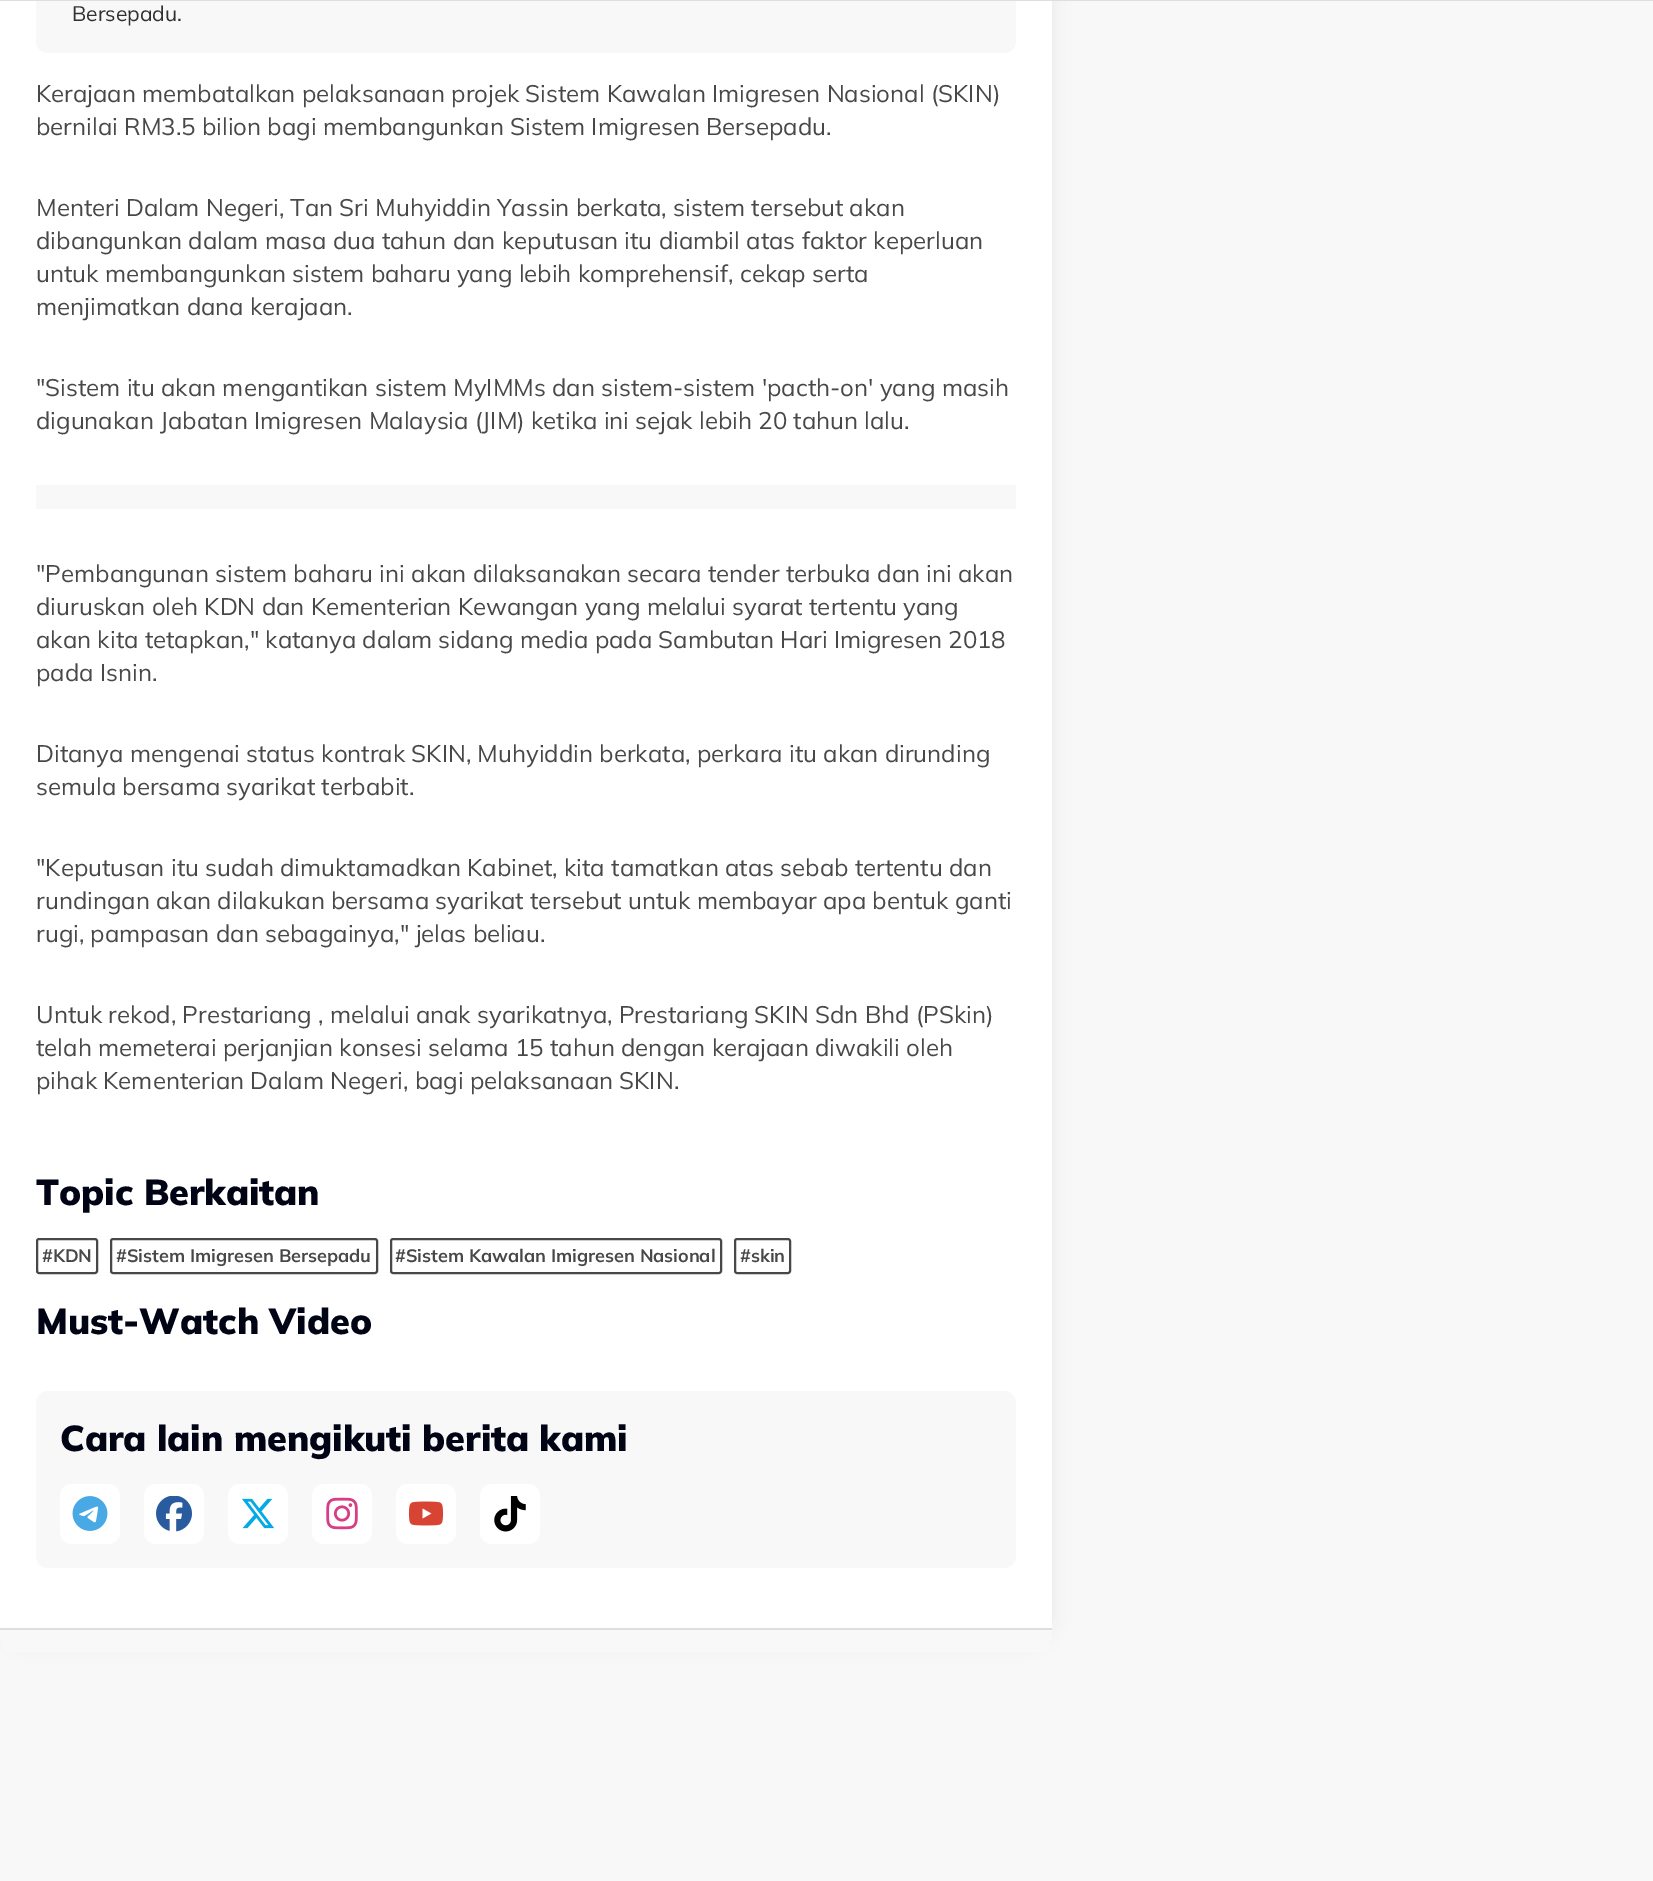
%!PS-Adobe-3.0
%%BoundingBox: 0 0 1653 1881
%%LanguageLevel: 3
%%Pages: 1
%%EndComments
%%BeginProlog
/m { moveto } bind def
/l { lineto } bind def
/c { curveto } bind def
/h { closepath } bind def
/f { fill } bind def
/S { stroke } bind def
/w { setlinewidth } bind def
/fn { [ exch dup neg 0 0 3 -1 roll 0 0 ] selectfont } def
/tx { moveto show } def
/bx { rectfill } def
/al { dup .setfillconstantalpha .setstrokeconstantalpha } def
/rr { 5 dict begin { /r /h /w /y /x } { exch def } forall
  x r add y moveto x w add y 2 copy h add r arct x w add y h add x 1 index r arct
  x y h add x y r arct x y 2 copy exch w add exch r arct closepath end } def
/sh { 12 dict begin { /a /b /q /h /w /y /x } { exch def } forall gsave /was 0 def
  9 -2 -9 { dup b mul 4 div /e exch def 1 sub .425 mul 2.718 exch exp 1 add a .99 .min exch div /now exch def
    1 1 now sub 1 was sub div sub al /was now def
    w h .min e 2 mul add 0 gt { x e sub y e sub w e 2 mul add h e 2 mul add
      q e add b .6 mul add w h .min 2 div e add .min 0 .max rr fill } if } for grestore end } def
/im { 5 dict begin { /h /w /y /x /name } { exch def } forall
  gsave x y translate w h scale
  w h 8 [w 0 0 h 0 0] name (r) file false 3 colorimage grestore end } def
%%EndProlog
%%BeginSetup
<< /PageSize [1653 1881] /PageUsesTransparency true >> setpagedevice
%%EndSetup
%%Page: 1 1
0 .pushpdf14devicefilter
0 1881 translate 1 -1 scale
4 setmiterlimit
0.973 0.973 0.976 setrgbcolor
0 0 1653 1881 bx
0 setgray
5 -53 1042 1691 20 11 0.1 sh
1 setgray
0 1 1052 1627 bx
0.973 0.973 0.976 setrgbcolor
36 -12 m 1016 -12 l 1016 41 l 1016 47.5 1010.5 53 1004 53 c 48 53 l 41.5 53 36 47.5 36 41 c h f
0.871 0.871 0.878 setrgbcolor
0 0 1653 1 bx
/Mulish-Regular 21 fn
0.188 0.188 0.192 setrgbcolor
(Bersepadu.) 72 21 tx
/Mulish-Regular 24 fn
0.282 0.282 0.286 setrgbcolor
(Kerajaan membatalkan pelaksanaan projek Sistem Kawalan Imigresen Nasional \(SKIN\)) 36 102 tx
(bernilai RM3.5 bilion bagi membangunkan Sistem Imigresen Bersepadu.) 36 135 tx
(Menteri Dalam Negeri, Tan Sri Muhyiddin Yassin berkata, sistem tersebut akan) 36 216 tx
(dibangunkan dalam masa dua tahun dan keputusan itu diambil atas faktor keperluan) 36 249 tx
(untuk membangunkan sistem baharu yang lebih komprehensif, cekap serta) 36 282 tx
(menjimatkan dana kerajaan.) 36 315 tx
("Sistem itu akan mengantikan sistem MyIMMs dan sistem-sistem 'pacth-on' yang masih) 36 396 tx
(digunakan Jabatan Imigresen Malaysia \(JIM\) ketika ini sejak lebih 20 tahun lalu.) 36 429 tx
0.973 0.973 0.976 setrgbcolor
36 485 980 24 bx
0.282 0.282 0.286 setrgbcolor
("Pembangunan sistem baharu ini akan dilaksanakan secara tender terbuka dan ini akan) 36 582 tx
(diuruskan oleh KDN dan Kementerian Kewangan yang melalui syarat tertentu yang) 36 615 tx
(akan kita tetapkan," katanya dalam sidang media pada Sambutan Hari Imigresen 2018) 36 648 tx
(pada Isnin.) 36 681 tx
(Ditanya mengenai status kontrak SKIN, Muhyiddin berkata, perkara itu akan dirunding) 36 762 tx
(semula bersama syarikat terbabit.) 36 795 tx
("Keputusan itu sudah dimuktamadkan Kabinet, kita tamatkan atas sebab tertentu dan) 36 876 tx
(rundingan akan dilakukan bersama syarikat tersebut untuk membayar apa bentuk ganti) 36 909 tx
(rugi, pampasan dan sebagainya," jelas beliau.) 36 942 tx
(Untuk rekod, Prestariang , melalui anak syarikatnya, Prestariang SKIN Sdn Bhd \(PSkin\)) 36 1023 tx
(telah memeterai perjanjian konsesi selama 15 tahun dengan kerajaan diwakili oleh) 36 1056 tx
(pihak Kementerian Dalam Negeri, bagi pelaksanaan SKIN.) 36 1089 tx
/Mulish-Black 36 fn
0.004 0.016 0.078 setrgbcolor
(Topic Berkaitan) 36 1205 tx
0.282 0.282 0.286 setrgbcolor
2 w
37 1239 60 34 2 rr S
/Mulish-Bold 18 fn
(#KDN) 42 1262 tx
111 1239 266 34 2 rr S
(#Sistem Imigresen Bersepadu) 116 1262 tx
391 1239 330 34 2 rr S
(#Sistem Kawalan Imigresen Nasional) 395 1262 tx
735 1239 55 34 2 rr S
(#skin) 740 1262 tx
/Mulish-Black 36 fn
0.004 0.016 0.078 setrgbcolor
(Must-Watch Video) 36 1334 tx
0.973 0.973 0.976 setrgbcolor
36 1391 980 177 12 rr f
0.004 0.016 0.078 setrgbcolor
(Cara lain mengikuti berita kami) 60 1451 tx
1 setgray
60 1484 60 60 12 rr f
(image0.raw) 72 1496 36 35 im
144 1484 60 60 12 rr f
(image1.raw) 156 1496 36 36 im
228 1484 60 60 12 rr f
(image2.raw) 242 1498 33 31 im
312 1484 60 60 12 rr f
(image3.raw) 326 1497 32 33 im
396 1484 60 60 12 rr f
(image4.raw) 408 1501 36 25 im
480 1484 60 60 12 rr f
(image5.raw) 494 1496 32 36 im
0.973 0.973 0.976 setrgbcolor
0 1630 1052 10 bx
0.871 0.871 0.878 setrgbcolor
0 1628 1052 2 bx
0.973 0.973 0.976 setrgbcolor
3 1640 1046 12 bx
.poppdf14devicefilter showpage
%%EOF
